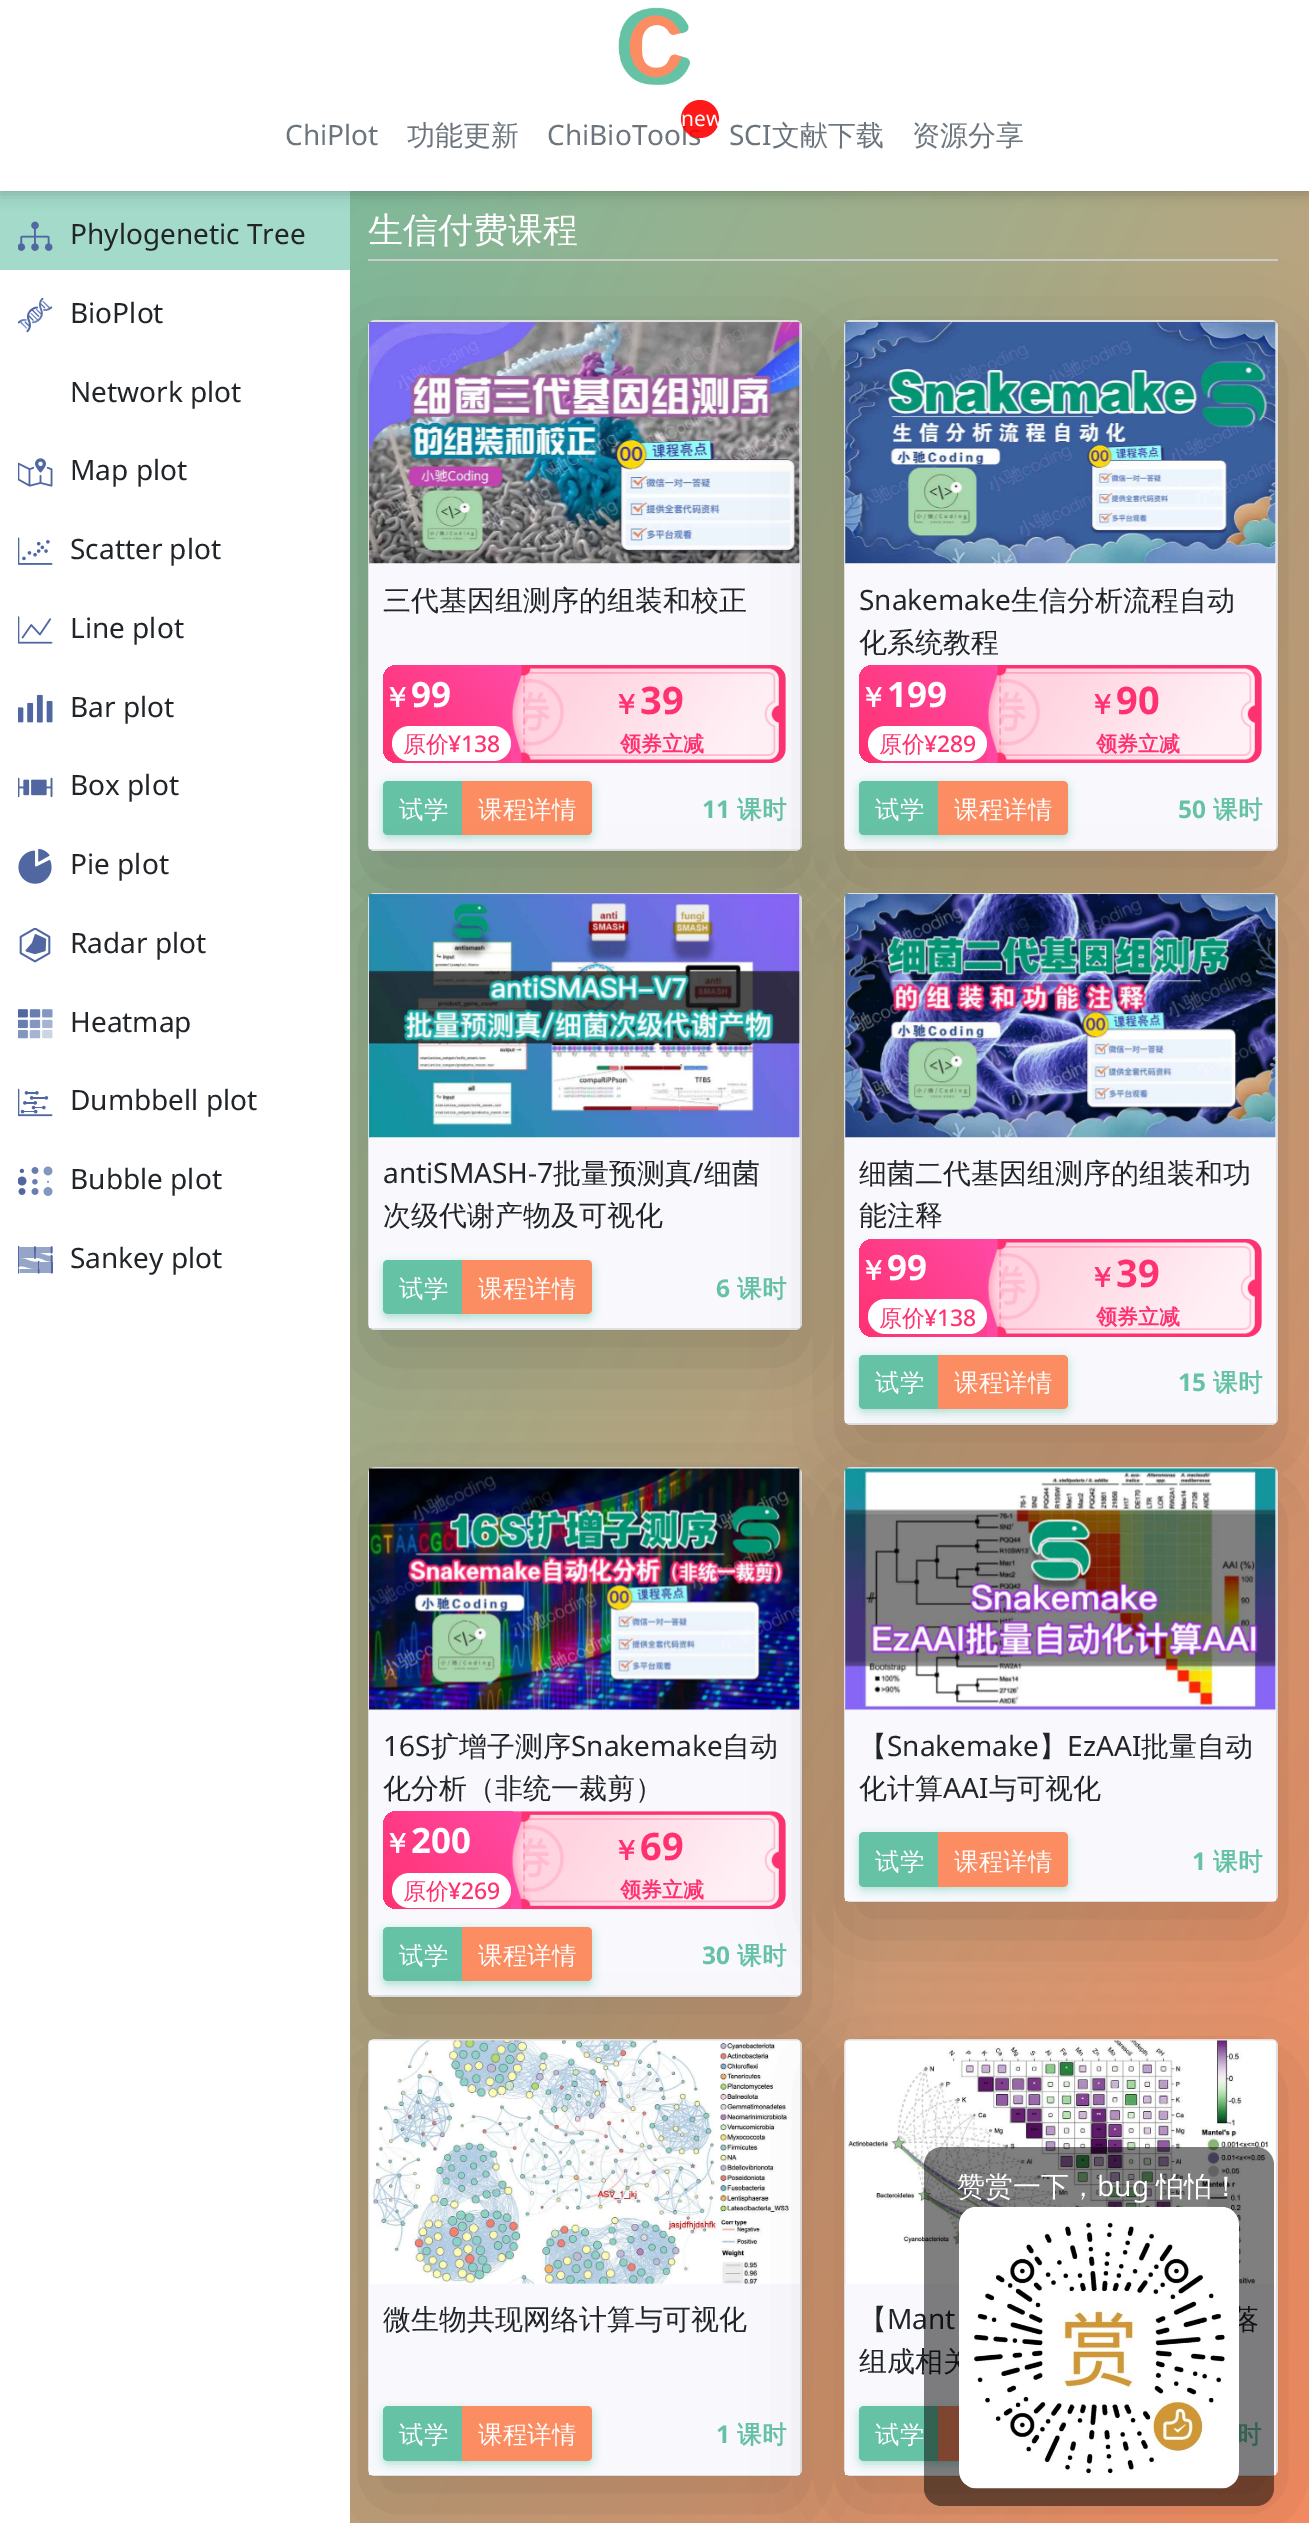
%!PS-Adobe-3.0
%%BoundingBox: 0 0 1309 2523
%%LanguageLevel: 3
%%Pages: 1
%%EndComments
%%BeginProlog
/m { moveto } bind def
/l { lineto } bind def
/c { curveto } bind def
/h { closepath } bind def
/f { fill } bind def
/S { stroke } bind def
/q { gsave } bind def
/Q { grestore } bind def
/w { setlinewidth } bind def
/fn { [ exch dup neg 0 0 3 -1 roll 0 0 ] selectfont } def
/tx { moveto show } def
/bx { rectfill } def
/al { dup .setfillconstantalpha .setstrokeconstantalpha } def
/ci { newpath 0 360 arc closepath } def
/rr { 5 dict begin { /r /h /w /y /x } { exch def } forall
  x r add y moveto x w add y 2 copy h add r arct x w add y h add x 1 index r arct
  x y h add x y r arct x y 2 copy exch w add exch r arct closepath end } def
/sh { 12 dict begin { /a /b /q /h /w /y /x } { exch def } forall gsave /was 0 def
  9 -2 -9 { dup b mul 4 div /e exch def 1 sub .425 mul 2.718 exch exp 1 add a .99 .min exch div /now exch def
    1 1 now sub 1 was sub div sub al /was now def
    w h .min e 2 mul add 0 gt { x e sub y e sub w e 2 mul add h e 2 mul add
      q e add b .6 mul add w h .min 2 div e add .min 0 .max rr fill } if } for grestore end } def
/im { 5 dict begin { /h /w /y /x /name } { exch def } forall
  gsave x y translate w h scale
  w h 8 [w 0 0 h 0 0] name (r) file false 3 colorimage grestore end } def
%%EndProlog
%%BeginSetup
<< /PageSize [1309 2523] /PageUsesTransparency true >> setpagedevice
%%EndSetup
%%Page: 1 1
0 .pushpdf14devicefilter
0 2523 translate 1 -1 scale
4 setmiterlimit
1 setgray
0 0 1309 2523 bx
q 350 191 m 1309 191 l 1309 2523 l 350 2523 l h clip newpath
<< /ShadingType 2 /ColorSpace /DeviceRGB /Coords [-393 788 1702 1834] /Extend [true true] /Function << /FunctionType 2 /Domain [0 1] /C0 [0.4 0.761 0.647] /C1 [0.988 0.553 0.384] /N 1 >> >> shfill Q
0.639 0.855 0.788 setrgbcolor
0 191 350 79 bx
0 setgray
0 4 1309 190 0 7 0.2 sh
1 setgray
0 0 1309 191 bx
(image0.raw) 618 7 73 78 im
/NotoSans-Regular 28 fn
0.424 0.459 0.49 setrgbcolor
(ChiPlot) 285 145 tx
/WenQuanYiZenHei-Medium 28 fn
(功能更新) 407 145 tx
/NotoSans-Regular 28 fn
(ChiBioTools) 547 145 tx
0.9 al
1 0 0 setrgbcolor
700 119 19 ci f
/NotoSans-Regular 21 fn
1 al
1 setgray
(new) 681 126 tx
/NotoSans-Regular 28 fn
0.424 0.459 0.49 setrgbcolor
(SCI) 729 145 tx
/WenQuanYiZenHei-Medium 28 fn
(文献下载) 772 145 tx
(资源分享) 912 145 tx
(image1.raw) 18 221 35 30 im
/NotoSans-Regular 28 fn
0.129 0.145 0.161 setrgbcolor
(Phylogenetic Tree) 70 244 tx
(image2.raw) 18 298 35 35 im
(BioPlot) 70 323 tx
(Network plot) 70 402 tx
(image3.raw) 18 458 35 29 im
(Map plot) 70 480 tx
(image4.raw) 18 537 35 28 im
(Scatter plot) 70 559 tx
(image5.raw) 18 616 35 28 im
(Line plot) 70 638 tx
(image6.raw) 18 694 35 29 im
(Bar plot) 70 717 tx
(image7.raw) 18 777 35 21 im
(Box plot) 70 795 tx
(image8.raw) 18 849 34 35 im
(Pie plot) 70 874 tx
(image9.raw) 19 928 32 35 im
(Radar plot) 70 953 tx
(image10.raw) 18 1009 35 30 im
(Heatmap) 70 1032 tx
(image11.raw) 18 1088 35 29 im
(Dumbbell plot) 70 1110 tx
(image12.raw) 18 1166 35 30 im
(Bubble plot) 70 1189 tx
(image13.raw) 18 1246 35 28 im
(Sankey plot) 70 1268 tx
0.8 setgray
368 259 910 2 bx
/WenQuanYiZenHei-Medium 35 fn
1 setgray
(生信付费课程) 368 242 tx
q
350 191 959 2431 rectclip
0 setgray
368 348 434 531 7 42 0.18 sh
Q
368 320 434 531 7 rr f
0.12 al
0 setgray
2 w
369 321 432 529 6 rr S
1 al
(image14.raw) 369 322 432 242 im
0.976 0.976 0.992 setrgbcolor
369 564 431 285 bx
/WenQuanYiZenHei-Medium 28 fn
0.129 0.145 0.161 setrgbcolor
(三代基因组测序的组装和校正) 383 610 tx
0.98 0.859 0.91 setrgbcolor
383 665 403 98 14 rr f
q 397 665 m 513 665 l 513 763 l 397 763 l 389.5 763 383 756.5 383 749 c 383 679 l 383 671.5 389.5 665 397 665 c h clip newpath
<< /ShadingType 2 /ColorSpace /DeviceRGB /Coords [387 767 509 661] /Extend [true true] /Function << /FunctionType 2 /Domain [0 1] /C0 [1 0.196 0.443] /C1 [1 0.286 0.643] /N 1 >> >> shfill Q
/WenQuanYiZenHei-Bold 28 fn
1 setgray
(￥) 383 707 tx
/NotoSans-Bold 35 fn
(99) 411 707 tx
392 726 119 35 17.5 rr f
/WenQuanYiZenHei-Medium 23 fn
1 0.196 0.443 setrgbcolor
(原价) 403 752 tx
/NotoSans-Medium 23 fn
(¥138) 448 752 tx
(image15.raw) 511 665 275 98 im
/WenQuanYiZenHei-Bold 28 fn
(￥) 612 714 tx
/NotoSans-Bold 38 fn
(39) 640 714 tx
/WenQuanYiZenHei-Bold 21 fn
(领券立减) 620 751 tx
0.4 0.765 0.647 setrgbcolor
383 784 81 54 5 5 0.5 sh
0.4 0.761 0.647 setrgbcolor
388 781 m 464 781 l 464 835 l 388 835 l 385 835 383 833 383 830 c 383 786 l 383 783 385 781 388 781 c h f
/WenQuanYiZenHei-Medium 24.5 fn
1 setgray
(试学) 399 818 tx
0.4 0.765 0.647 setrgbcolor
462 784 130 54 5 5 0.5 sh
0.988 0.553 0.384 setrgbcolor
462 781 m 587 781 l 590 781 592 783 592 786 c 592 830 l 592 833 590 835 587 835 c 462 835 l h f
1 setgray
(课程详情) 478 818 tx
/NotoSans-Bold 24.5 fn
0.4 0.761 0.647 setrgbcolor
(11) 702 818 tx
/WenQuanYiZenHei-Bold 24.5 fn
(课时) 737 818 tx
0 setgray
844 348 434 531 7 42 0.18 sh
1 setgray
844 320 434 531 7 rr f
0.12 al
0 setgray
845 321 432 529 6 rr S
1 al
(image16.raw) 845 322 431 242 im
0.976 0.976 0.992 setrgbcolor
845 564 431 285 bx
/NotoSans-Regular 28 fn
0.129 0.145 0.161 setrgbcolor
(Snakemake) 859 610 tx
/WenQuanYiZenHei-Medium 28 fn
(生信分析流程自动) 1011 610 tx
(化系统教程) 859 652 tx
0.98 0.859 0.91 setrgbcolor
859 665 403 98 14 rr f
q 873 665 m 989 665 l 989 763 l 873 763 l 865.5 763 859 756.5 859 749 c 859 679 l 859 671.5 865.5 665 873 665 c h clip newpath
<< /ShadingType 2 /ColorSpace /DeviceRGB /Coords [863 767 985 661] /Extend [true true] /Function << /FunctionType 2 /Domain [0 1] /C0 [1 0.196 0.443] /C1 [1 0.286 0.643] /N 1 >> >> shfill Q
/WenQuanYiZenHei-Bold 28 fn
1 setgray
(￥) 859 707 tx
/NotoSans-Bold 35 fn
(199) 887 707 tx
868 726 119 35 17.5 rr f
/WenQuanYiZenHei-Medium 23 fn
1 0.196 0.443 setrgbcolor
(原价) 879 752 tx
/NotoSans-Medium 23 fn
(¥289) 924 752 tx
(image17.raw) 987 665 275 98 im
/WenQuanYiZenHei-Bold 28 fn
(￥) 1088 714 tx
/NotoSans-Bold 38 fn
(90) 1116 714 tx
/WenQuanYiZenHei-Bold 21 fn
(领券立减) 1096 751 tx
0.4 0.765 0.647 setrgbcolor
859 784 81 54 5 5 0.5 sh
0.4 0.761 0.647 setrgbcolor
864 781 m 940 781 l 940 835 l 864 835 l 861 835 859 833 859 830 c 859 786 l 859 783 861 781 864 781 c h f
/WenQuanYiZenHei-Medium 24.5 fn
1 setgray
(试学) 875 818 tx
0.4 0.765 0.647 setrgbcolor
938 784 130 54 5 5 0.5 sh
0.988 0.553 0.384 setrgbcolor
938 781 m 1063 781 l 1066 781 1068 783 1068 786 c 1068 830 l 1068 833 1066 835 1063 835 c 938 835 l h f
1 setgray
(课程详情) 954 818 tx
/NotoSans-Bold 24.5 fn
0.4 0.761 0.647 setrgbcolor
(50) 1178 818 tx
/WenQuanYiZenHei-Bold 24.5 fn
(课时) 1213 818 tx
q
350 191 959 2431 rectclip
0 setgray
368 921 434 437 7 42 0.18 sh
Q
1 setgray
368 893 434 437 7 rr f
0.12 al
0 setgray
369 894 432 435 6 rr S
1 al
(image18.raw) 369 894 432 244 im
0.976 0.976 0.992 setrgbcolor
369 1138 431 190 bx
/NotoSans-Regular 28 fn
0.129 0.145 0.161 setrgbcolor
(antiSMASH-7) 383 1183 tx
/WenQuanYiZenHei-Medium 28 fn
(批量预测真) 553 1183 tx
/NotoSans-Regular 28 fn
(/) 693 1183 tx
/WenQuanYiZenHei-Medium 28 fn
(细菌) 704 1183 tx
(次级代谢产物及可视化) 383 1225 tx
0.4 0.765 0.647 setrgbcolor
383 1264 81 54 5 5 0.5 sh
0.4 0.761 0.647 setrgbcolor
388 1260 m 464 1260 l 464 1314 l 388 1314 l 385 1314 383 1312 383 1309 c 383 1265 l 383 1262 385 1260 388 1260 c h f
/WenQuanYiZenHei-Medium 24.5 fn
1 setgray
(试学) 399 1297 tx
0.4 0.765 0.647 setrgbcolor
462 1264 130 54 5 5 0.5 sh
0.988 0.553 0.384 setrgbcolor
462 1260 m 587 1260 l 590 1260 592 1262 592 1265 c 592 1309 l 592 1312 590 1314 587 1314 c 462 1314 l h f
1 setgray
(课程详情) 478 1297 tx
/NotoSans-Bold 24.5 fn
0.4 0.761 0.647 setrgbcolor
(6) 716 1297 tx
/WenQuanYiZenHei-Bold 24.5 fn
(课时) 737 1297 tx
0 setgray
844 921 434 532 7 42 0.18 sh
1 setgray
844 893 434 532 7 rr f
0.12 al
0 setgray
845 894 432 530 6 rr S
1 al
(image19.raw) 845 894 431 244 im
0.976 0.976 0.992 setrgbcolor
845 1138 431 285 bx
/WenQuanYiZenHei-Medium 28 fn
0.129 0.145 0.161 setrgbcolor
(细菌二代基因组测序的组装和功) 859 1183 tx
(能注释) 859 1225 tx
0.98 0.859 0.91 setrgbcolor
859 1239 403 98 14 rr f
q 873 1239 m 989 1239 l 989 1337 l 873 1337 l 865.5 1337 859 1330.5 859 1323 c 859 1253 l 859 1245.5 865.5 1239 873 1239 c h clip newpath
<< /ShadingType 2 /ColorSpace /DeviceRGB /Coords [863 1341 985 1235] /Extend [true true] /Function << /FunctionType 2 /Domain [0 1] /C0 [1 0.196 0.443] /C1 [1 0.286 0.643] /N 1 >> >> shfill Q
/WenQuanYiZenHei-Bold 28 fn
1 setgray
(￥) 859 1280 tx
/NotoSans-Bold 35 fn
(99) 887 1280 tx
868 1299 119 35 17.5 rr f
/WenQuanYiZenHei-Medium 23 fn
1 0.196 0.443 setrgbcolor
(原价) 879 1326 tx
/NotoSans-Medium 23 fn
(¥138) 924 1326 tx
(image17.raw) 987 1239 275 98 im
/WenQuanYiZenHei-Bold 28 fn
(￥) 1088 1287 tx
/NotoSans-Bold 38 fn
(39) 1116 1287 tx
/WenQuanYiZenHei-Bold 21 fn
(领券立减) 1096 1324 tx
0.4 0.765 0.647 setrgbcolor
859 1358 81 54 5 5 0.5 sh
0.4 0.761 0.647 setrgbcolor
864 1355 m 940 1355 l 940 1409 l 864 1409 l 861 1409 859 1407 859 1404 c 859 1360 l 859 1357 861 1355 864 1355 c h f
/WenQuanYiZenHei-Medium 24.5 fn
1 setgray
(试学) 875 1391 tx
0.4 0.765 0.647 setrgbcolor
938 1358 130 54 5 5 0.5 sh
0.988 0.553 0.384 setrgbcolor
938 1355 m 1063 1355 l 1066 1355 1068 1357 1068 1360 c 1068 1404 l 1068 1407 1066 1409 1063 1409 c 938 1409 l h f
1 setgray
(课程详情) 954 1391 tx
/NotoSans-Bold 24.5 fn
0.4 0.761 0.647 setrgbcolor
(15) 1178 1391 tx
/WenQuanYiZenHei-Bold 24.5 fn
(课时) 1213 1391 tx
q
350 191 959 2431 rectclip
0 setgray
368 1495 434 530 7 42 0.18 sh
Q
1 setgray
368 1467 434 530 7 rr f
0.12 al
0 setgray
369 1468 432 528 6 rr S
1 al
0.976 0.976 0.992 setrgbcolor
369 1710 431 285 bx
(image20.raw) 369 1467 432 244 im
/NotoSans-Regular 28 fn
0.129 0.145 0.161 setrgbcolor
(16S) 383 1756 tx
/WenQuanYiZenHei-Medium 28 fn
(扩增子测序) 431 1756 tx
/NotoSans-Regular 28 fn
(Snakemake) 571 1756 tx
/WenQuanYiZenHei-Medium 28 fn
(自动) 722 1756 tx
(化分析（非统一裁剪）) 383 1798 tx
0.98 0.859 0.91 setrgbcolor
383 1811 403 98 14 rr f
q 397 1811 m 513 1811 l 513 1909 l 397 1909 l 389.5 1909 383 1902.5 383 1895 c 383 1825 l 383 1817.5 389.5 1811 397 1811 c h clip newpath
<< /ShadingType 2 /ColorSpace /DeviceRGB /Coords [387 1913 509 1807] /Extend [true true] /Function << /FunctionType 2 /Domain [0 1] /C0 [1 0.196 0.443] /C1 [1 0.286 0.643] /N 1 >> >> shfill Q
/WenQuanYiZenHei-Bold 28 fn
1 setgray
(￥) 383 1853 tx
/NotoSans-Bold 35 fn
(200) 411 1853 tx
392 1873 119 35 17.5 rr f
/WenQuanYiZenHei-Medium 23 fn
1 0.196 0.443 setrgbcolor
(原价) 403 1899 tx
/NotoSans-Medium 23 fn
(¥269) 448 1899 tx
(image21.raw) 511 1811 275 99 im
/WenQuanYiZenHei-Bold 28 fn
(￥) 612 1860 tx
/NotoSans-Bold 38 fn
(69) 640 1860 tx
/WenQuanYiZenHei-Bold 21 fn
(领券立减) 620 1897 tx
0.4 0.765 0.647 setrgbcolor
383 1930 81 55 5 5 0.5 sh
0.4 0.761 0.647 setrgbcolor
388 1927 m 464 1927 l 464 1981 l 388 1981 l 385 1981 383 1979 383 1976 c 383 1932 l 383 1929 385 1927 388 1927 c h f
/WenQuanYiZenHei-Medium 24.5 fn
1 setgray
(试学) 399 1964 tx
0.4 0.765 0.647 setrgbcolor
462 1930 130 55 5 5 0.5 sh
0.988 0.553 0.384 setrgbcolor
462 1927 m 587 1927 l 590 1927 592 1929 592 1932 c 592 1976 l 592 1979 590 1981 587 1981 c 462 1981 l h f
1 setgray
(课程详情) 478 1964 tx
/NotoSans-Bold 24.5 fn
0.4 0.761 0.647 setrgbcolor
(30) 702 1964 tx
/WenQuanYiZenHei-Bold 24.5 fn
(课时) 737 1964 tx
0 setgray
844 1495 434 435 7 42 0.18 sh
1 setgray
844 1467 434 435 7 rr f
0.12 al
0 setgray
845 1468 432 433 6 rr S
1 al
0.976 0.976 0.992 setrgbcolor
845 1710 431 191 bx
(image22.raw) 845 1467 431 244 im
/WenQuanYiZenHei-Medium 28 fn
0.129 0.145 0.161 setrgbcolor
(【) 859 1756 tx
/NotoSans-Regular 28 fn
(Snakemake) 887 1756 tx
/WenQuanYiZenHei-Medium 28 fn
(】) 1039 1756 tx
/NotoSans-Regular 28 fn
(EzAAI) 1067 1756 tx
/WenQuanYiZenHei-Medium 28 fn
(批量自动) 1141 1756 tx
(化计算) 859 1798 tx
/NotoSans-Regular 28 fn
(AAI) 943 1798 tx
/WenQuanYiZenHei-Medium 28 fn
(与可视化) 989 1798 tx
0.4 0.765 0.647 setrgbcolor
859 1836 81 54 5 5 0.5 sh
0.4 0.761 0.647 setrgbcolor
864 1832 m 940 1832 l 940 1887 l 864 1887 l 861 1887 859 1885 859 1882 c 859 1837 l 859 1834 861 1832 864 1832 c h f
/WenQuanYiZenHei-Medium 24.5 fn
1 setgray
(试学) 875 1870 tx
0.4 0.765 0.647 setrgbcolor
938 1836 130 54 5 5 0.5 sh
0.988 0.553 0.384 setrgbcolor
938 1832 m 1063 1832 l 1066 1832 1068 1834 1068 1837 c 1068 1882 l 1068 1885 1066 1887 1063 1887 c 938 1887 l h f
1 setgray
(课程详情) 954 1870 tx
/NotoSans-Bold 24.5 fn
0.4 0.761 0.647 setrgbcolor
(1) 1192 1870 tx
/WenQuanYiZenHei-Bold 24.5 fn
(课时) 1213 1870 tx
q
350 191 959 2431 rectclip
0 setgray
368 2067 434 437 7 42 0.18 sh
Q
1 setgray
368 2039 434 437 7 rr f
0.12 al
0 setgray
369 2040 432 435 6 rr S
1 al
(image23.raw) 369 2040 431 244 im
0.976 0.976 0.992 setrgbcolor
369 2284 431 191 bx
/WenQuanYiZenHei-Medium 28 fn
0.129 0.145 0.161 setrgbcolor
(微生物共现网络计算与可视化) 383 2329 tx
0.4 0.765 0.647 setrgbcolor
383 2410 81 54 5 5 0.5 sh
0.4 0.761 0.647 setrgbcolor
388 2406 m 464 2406 l 464 2461 l 388 2461 l 385 2461 383 2459 383 2456 c 383 2411 l 383 2408 385 2406 388 2406 c h f
/WenQuanYiZenHei-Medium 24.5 fn
1 setgray
(试学) 399 2443 tx
0.4 0.765 0.647 setrgbcolor
462 2410 130 54 5 5 0.5 sh
0.988 0.553 0.384 setrgbcolor
462 2406 m 587 2406 l 590 2406 592 2408 592 2411 c 592 2456 l 592 2459 590 2461 587 2461 c 462 2461 l h f
1 setgray
(课程详情) 478 2443 tx
/NotoSans-Bold 24.5 fn
0.4 0.761 0.647 setrgbcolor
(1) 716 2443 tx
/WenQuanYiZenHei-Bold 24.5 fn
(课时) 737 2443 tx
0 setgray
844 2067 434 437 7 42 0.18 sh
1 setgray
844 2039 434 437 7 rr f
0.12 al
0 setgray
845 2040 432 435 6 rr S
1 al
(image24.raw) 845 2040 431 244 im
0.976 0.976 0.992 setrgbcolor
845 2284 431 191 bx
/WenQuanYiZenHei-Medium 28 fn
0.129 0.145 0.161 setrgbcolor
(【) 859 2329 tx
/NotoSans-Regular 28 fn
(Mant) 887 2329 tx
/WenQuanYiZenHei-Medium 28 fn
(落) 1231 2329 tx
(组成相关) 859 2371 tx
0.4 0.765 0.647 setrgbcolor
859 2410 81 54 5 5 0.5 sh
0.4 0.761 0.647 setrgbcolor
864 2406 m 940 2406 l 940 2461 l 864 2461 l 861 2461 859 2459 859 2456 c 859 2411 l 859 2408 861 2406 864 2406 c h f
/WenQuanYiZenHei-Medium 24.5 fn
1 setgray
(试学) 875 2443 tx
0.4 0.765 0.647 setrgbcolor
938 2410 130 54 5 5 0.5 sh
0.988 0.553 0.384 setrgbcolor
938 2406 21 55 bx
/WenQuanYiZenHei-Bold 24.5 fn
0.4 0.761 0.647 setrgbcolor
(时) 1237 2443 tx
0.5 al
0 setgray
924 2147 350 359 18 rr f
/WenQuanYiZenHei-Medium 28 fn
1 al
1 setgray
(赞赏一下，) 957 2196 tx
/NotoSans-Regular 28 fn
(bug) 1097 2196 tx
/WenQuanYiZenHei-Medium 28 fn
(怕怕！) 1156 2196 tx
(image25.raw) 959 2206 280 283 im
.poppdf14devicefilter showpage
%%EOF
